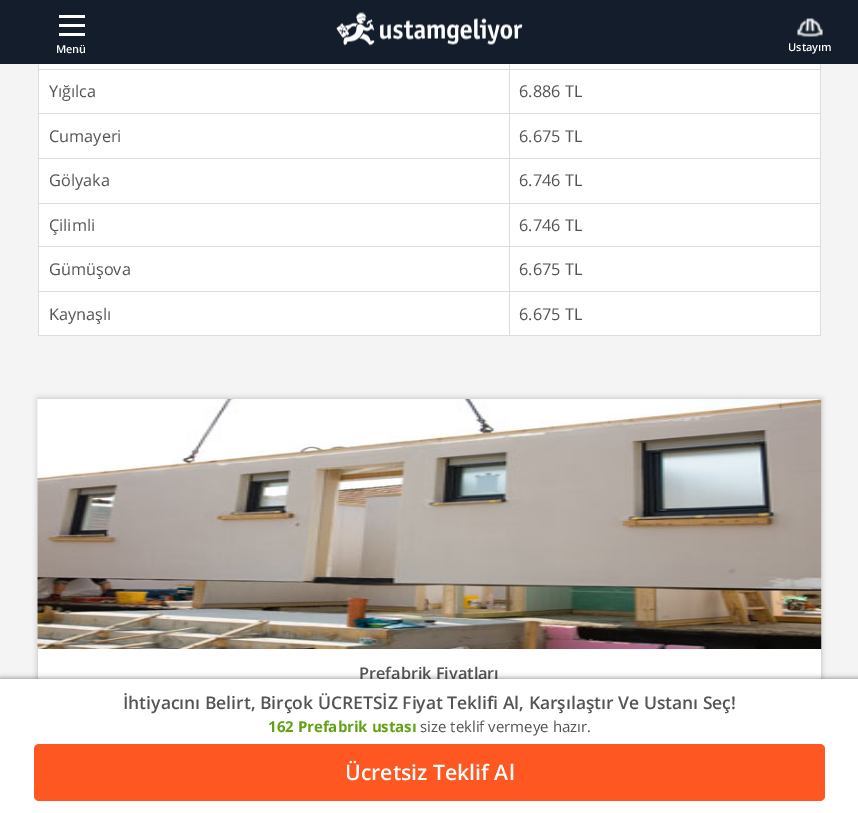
%!PS-Adobe-3.0
%%BoundingBox: 0 0 858 813
%%LanguageLevel: 3
%%Pages: 1
%%EndComments
%%BeginProlog
/f { fill } bind def
/fn { [ exch dup neg 0 0 3 -1 roll 0 0 ] selectfont } def
/tx { moveto show } def
/bx { rectfill } def
/al { dup .setfillconstantalpha .setstrokeconstantalpha } def
/rr { 5 dict begin { /r /h /w /y /x } { exch def } forall
  x r add y moveto x w add y 2 copy h add r arct x w add y h add x 1 index r arct
  x y h add x y r arct x y 2 copy exch w add exch r arct closepath end } def
/sh { 12 dict begin { /a /b /q /h /w /y /x } { exch def } forall gsave /was 0 def
  9 -2 -9 { dup b mul 4 div /e exch def 1 sub .425 mul 2.718 exch exp 1 add a .99 .min exch div /now exch def
    1 1 now sub 1 was sub div sub al /was now def
    w h .min e 2 mul add 0 gt { x e sub y e sub w e 2 mul add h e 2 mul add
      q e add b .6 mul add w h .min 2 div e add .min 0 .max rr fill } if } for grestore end } def
/im { 5 dict begin { /h /w /y /x /name } { exch def } forall
  gsave x y translate w h scale
  w h 8 [w 0 0 h 0 0] name (r) file false 3 colorimage grestore end } def
%%EndProlog
%%BeginSetup
<< /PageSize [858 813] /PageUsesTransparency true >> setpagedevice
%%EndSetup
%%Page: 1 1
0 .pushpdf14devicefilter
0 813 translate 1 -1 scale
4 setmiterlimit
0.957 setgray
0 0 858 813 bx
0.078 0.114 0.169 setrgbcolor
0 0 858 64 bx
(image0.raw) 336 12 187 34 im
1 setgray
59 15 26 3 bx
59 24 26 3 bx
59 33 26 3 bx
/OpenSans-SemiBold 11 fn
(Menü) 56 53 tx
(image1.raw) 797 18 26 19 im
(Ustayım) 788 51 tx
39 64 781 271 bx
0.867 setgray
820 64 1 272 bx
38 335 783 1 bx
38 64 1 272 bx
509 69 312 1 bx
509 113 312 1 bx
509 158 312 1 bx
509 203 312 1 bx
509 246 312 1 bx
509 291 312 1 bx
509 291 1 45 bx
38 291 472 1 bx
509 246 1 47 bx
38 246 472 1 bx
509 203 1 45 bx
38 203 472 1 bx
509 158 1 46 bx
38 158 472 1 bx
509 113 1 46 bx
38 113 472 1 bx
509 69 1 45 bx
38 69 472 1 bx
509 64 1 6 bx
/OpenSans-Regular 16.25 fn
0.329 setgray
(Yığılca) 49 97 tx
(6.886 TL) 519 97 tx
(Cumayeri) 49 142 tx
(6.675 TL) 519 142 tx
(Gölyaka) 49 186 tx
(6.746 TL) 519 186 tx
(Çilimli) 49 231 tx
(6.746 TL) 519 231 tx
(Gümüşova) 49 275 tx
(6.675 TL) 519 275 tx
(Kaynaşlı) 49 320 tx
(6.675 TL) 519 320 tx
0 setgray
38 399 783 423 0 3 0.25 sh
1 setgray
38 649 783 30 bx
(image2.raw) 37 399 785 250 im
/OpenSans-SemiBold 16.25 fn
0.329 setgray
(Prefabrik Fiyatları) 359 679 tx
0 setgray
0 678 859 135 0 2.5 0.35 sh
1 setgray
0 679 858 134 bx
/OpenSans-SemiBold 17.5 fn
0.329 setgray
(İhtiyacını Belirt, Birçok ÜCRETSİZ Fiyat Teklifi Al, Karşılaştır Ve Ustanı Seç!) 123 709 tx
/OpenSans-Bold 15 fn
0.38 0.631 0.075 setrgbcolor
(162 Prefabrik ustası) 268 732 tx
/OpenSans-Regular 15 fn
0.329 setgray
(size teklif vermeye hazır.) 420 732 tx
1 0.341 0.133 setrgbcolor
34 744 791 57 5 rr f
/OpenSans-SemiBold 21.25 fn
1 setgray
(Ücretsiz Teklif Al) 345 780 tx
.poppdf14devicefilter showpage
%%EOF
